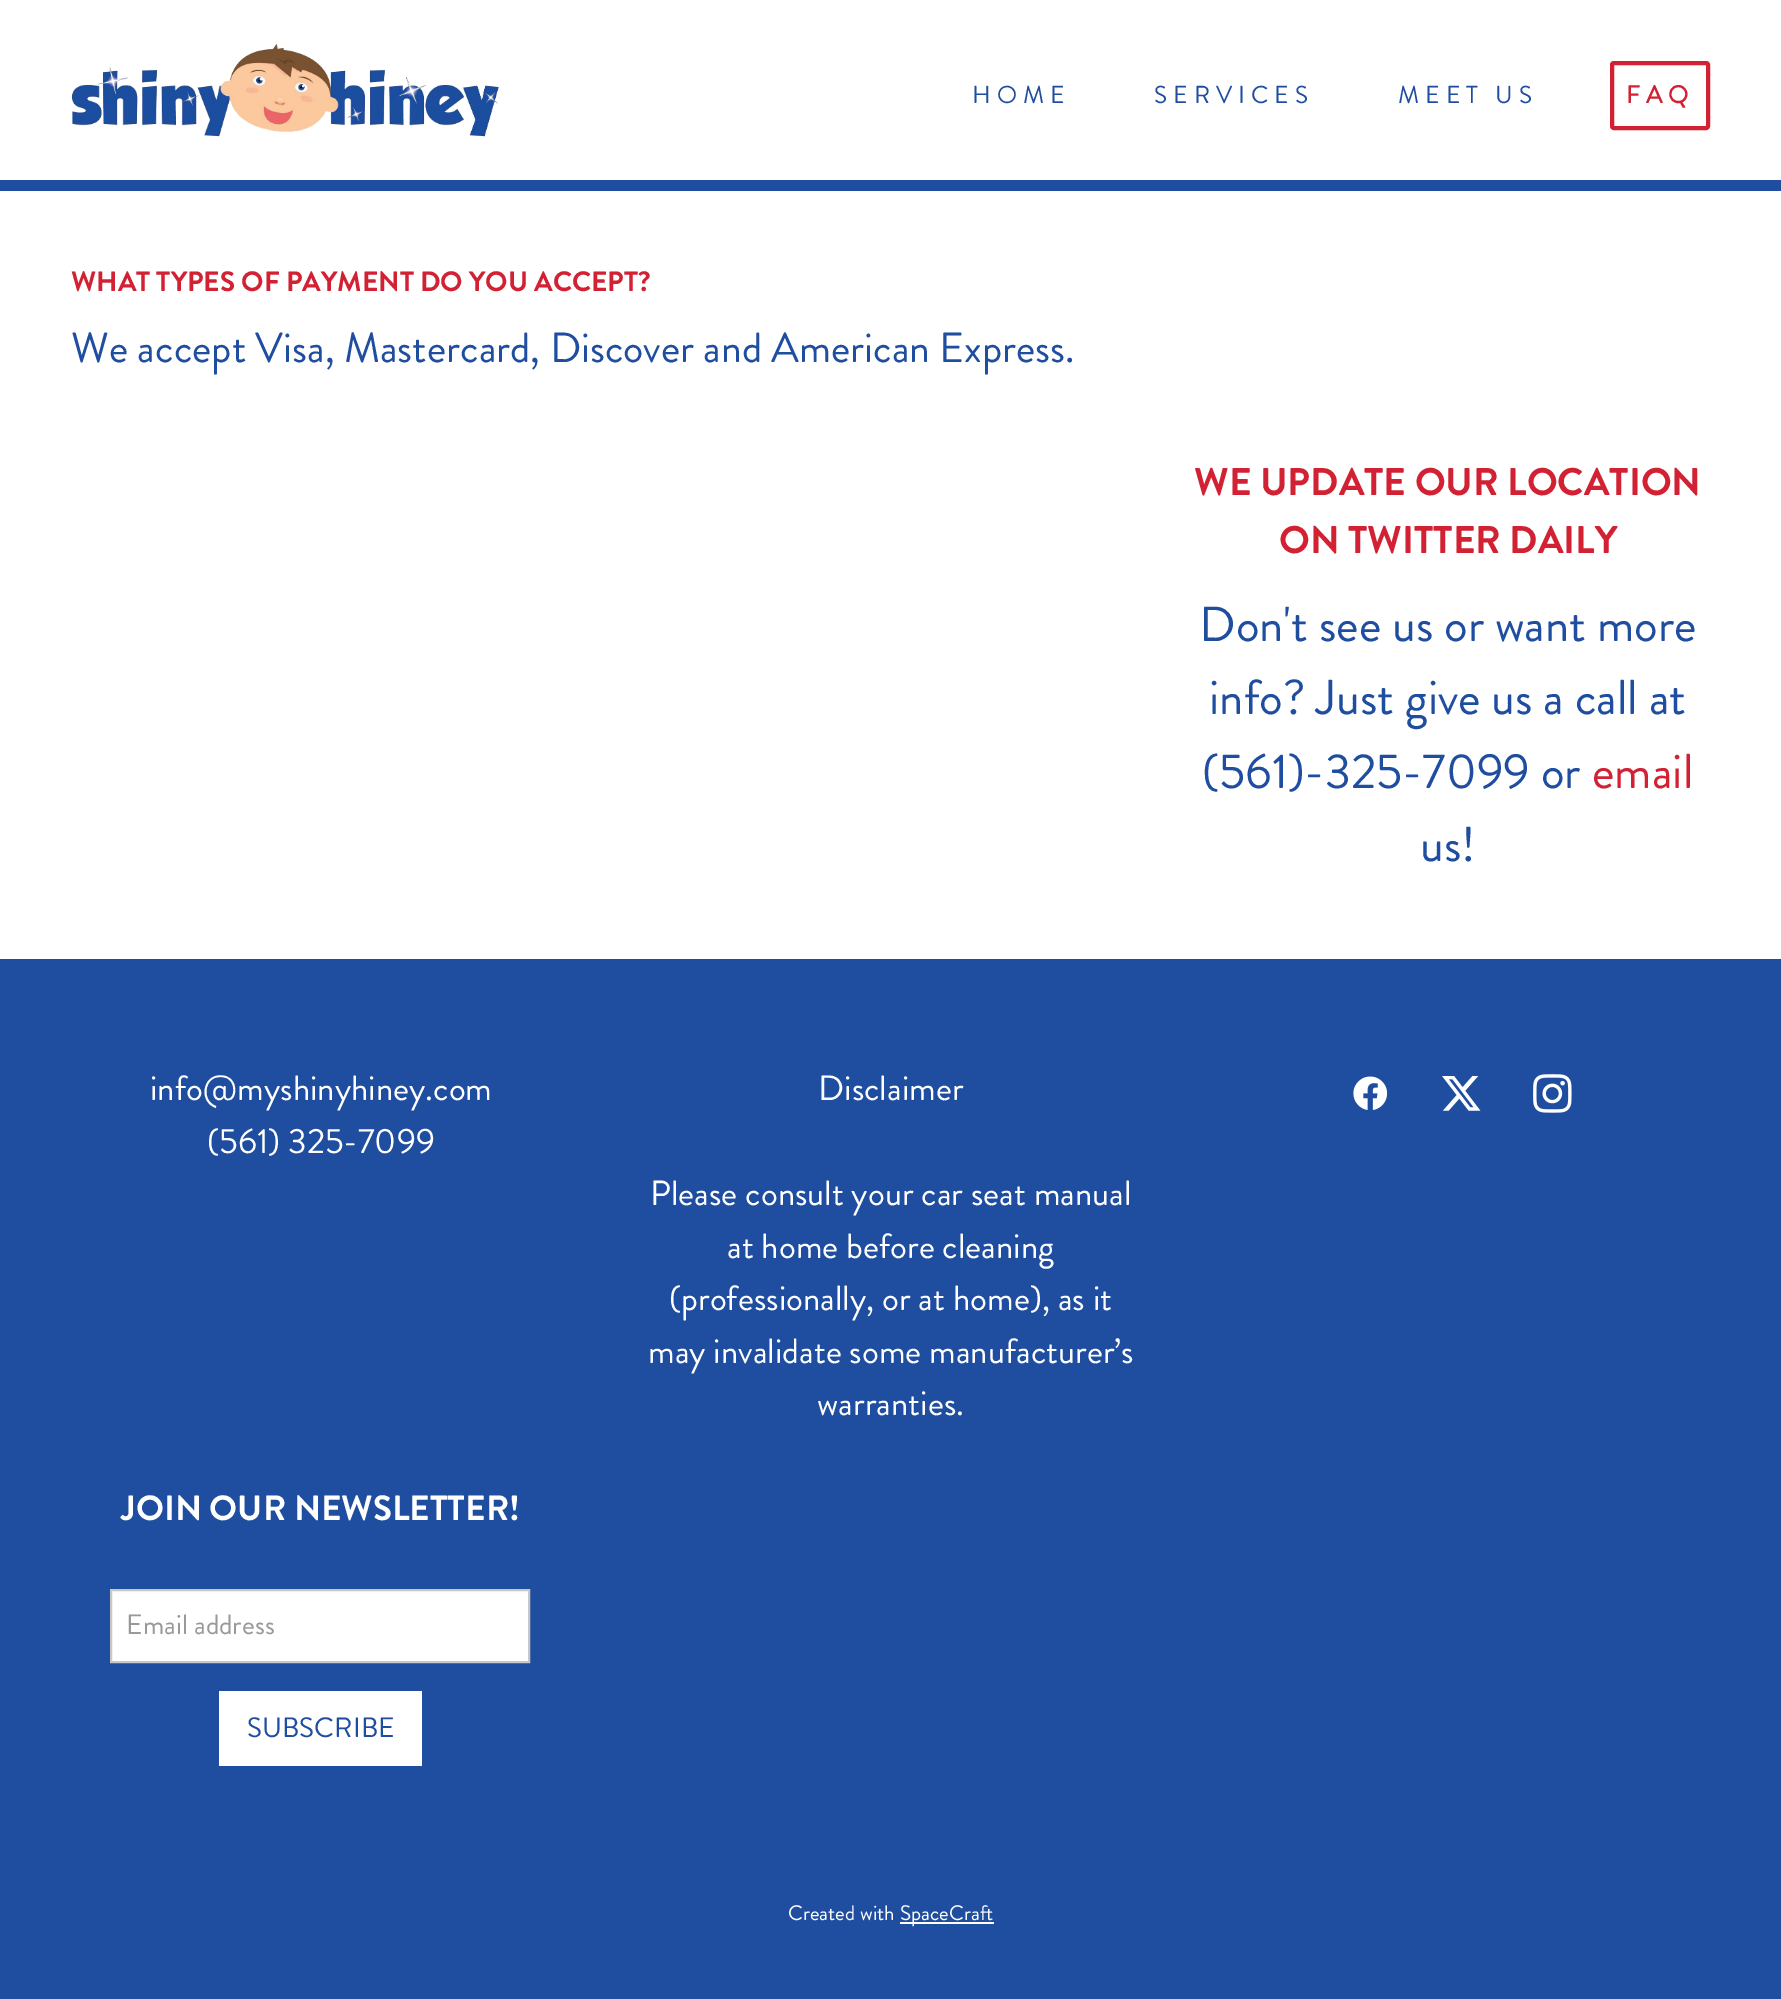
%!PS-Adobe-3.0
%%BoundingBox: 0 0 1781 1999
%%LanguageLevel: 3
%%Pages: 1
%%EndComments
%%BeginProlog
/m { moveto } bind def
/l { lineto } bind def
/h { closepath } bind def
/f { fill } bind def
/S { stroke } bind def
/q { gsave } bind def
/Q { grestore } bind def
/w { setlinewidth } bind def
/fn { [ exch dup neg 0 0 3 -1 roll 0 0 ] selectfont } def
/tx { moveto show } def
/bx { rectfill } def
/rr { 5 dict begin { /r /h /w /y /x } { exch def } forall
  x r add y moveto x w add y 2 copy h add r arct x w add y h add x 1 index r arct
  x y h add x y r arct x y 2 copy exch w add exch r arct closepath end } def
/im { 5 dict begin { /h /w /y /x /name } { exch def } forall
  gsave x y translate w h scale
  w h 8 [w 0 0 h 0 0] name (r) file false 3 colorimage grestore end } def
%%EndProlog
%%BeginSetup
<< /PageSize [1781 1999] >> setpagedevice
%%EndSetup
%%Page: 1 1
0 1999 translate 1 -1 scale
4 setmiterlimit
1 setgray
0 0 1781 1999 bx
0.122 0.306 0.627 setrgbcolor
0 180 1781 11 bx
(image0.raw) 71 44 428 93 im
/BrandonGrotesque-Regular 24.5 fn
972 103 m 6 0 (HOME) ashow
1154 103 m 6 0 (SERVICES) ashow
1398 103 m 6 0 (MEET US) ashow
0.82 0.129 0.2 setrgbcolor
4 w
1612 63 96 65 2 rr S
/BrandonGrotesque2-Bold 24.5 fn
1626 103 m 6 0 (FAQ) ashow
/BrandonGrotesque-Bold 28 fn
(WHAT TYPES OF PAYMENT DO YOU ACCEPT?) 71 291 tx
/BrandonGrotesque-Regular 42 fn
0.122 0.306 0.627 setrgbcolor
(We accept Visa, Mastercard, Discover and American Express.) 71 362 tx
/BrandonGrotesque-Bold 38.5 fn
0.82 0.129 0.2 setrgbcolor
(WE UPDATE OUR LOCATION) 1194 495 tx
(ON TWITTER DAILY) 1279 553 tx
/BrandonGrotesque-Regular 49 fn
0.122 0.306 0.627 setrgbcolor
(Don't see us or want more) 1199 641 tx
(info? Just give us a call at) 1209 714 tx
(\(561\)-325-7099 or) 1202 788 tx
0.82 0.129 0.2 setrgbcolor
(email) 1592 788 tx
0.122 0.306 0.627 setrgbcolor
(us!) 1420 861 tx
0 959 1781 1040 bx
/BrandonGrotesque-Regular 35 fn
1 setgray
(info@myshinyhiney.com) 150 1100 tx
(\(561\) 325-7099) 207 1153 tx
(Disclaimer) 818 1100 tx
(Please consult your car seat manual) 650 1205 tx
(at home before cleaning) 727 1258 tx
(\(professionally, or at home\), as it) 669 1310 tx
(may invalidate some manufacturer’s) 648 1363 tx
(warranties.) 817 1415 tx
(image1.raw) 1353 1076 35 34 im
(image2.raw) 1442 1076 39 35 im
(image3.raw) 1533 1074 39 39 im
/BrandonGrotesque-Bold 35 fn
(JOIN OUR NEWSLETTER!) 121 1520 tx
111 1590 m 529 1590 l 529 1662 l 111 1662 l h q f Q
0.784 setgray
2 w
S
/BrandonGrotesque-Regular 28 fn
0.6 setgray
(Email address) 126 1634 tx
1 setgray
219 1691 203 75 bx
0.122 0.306 0.627 setrgbcolor
(SUBSCRIBE) 247 1737 tx
/BrandonGrotesque-Regular 21 fn
1 setgray
(Created with) 788 1920 tx
900 1922 94 2 bx
(SpaceCraft) 900 1920 tx
showpage
%%EOF
